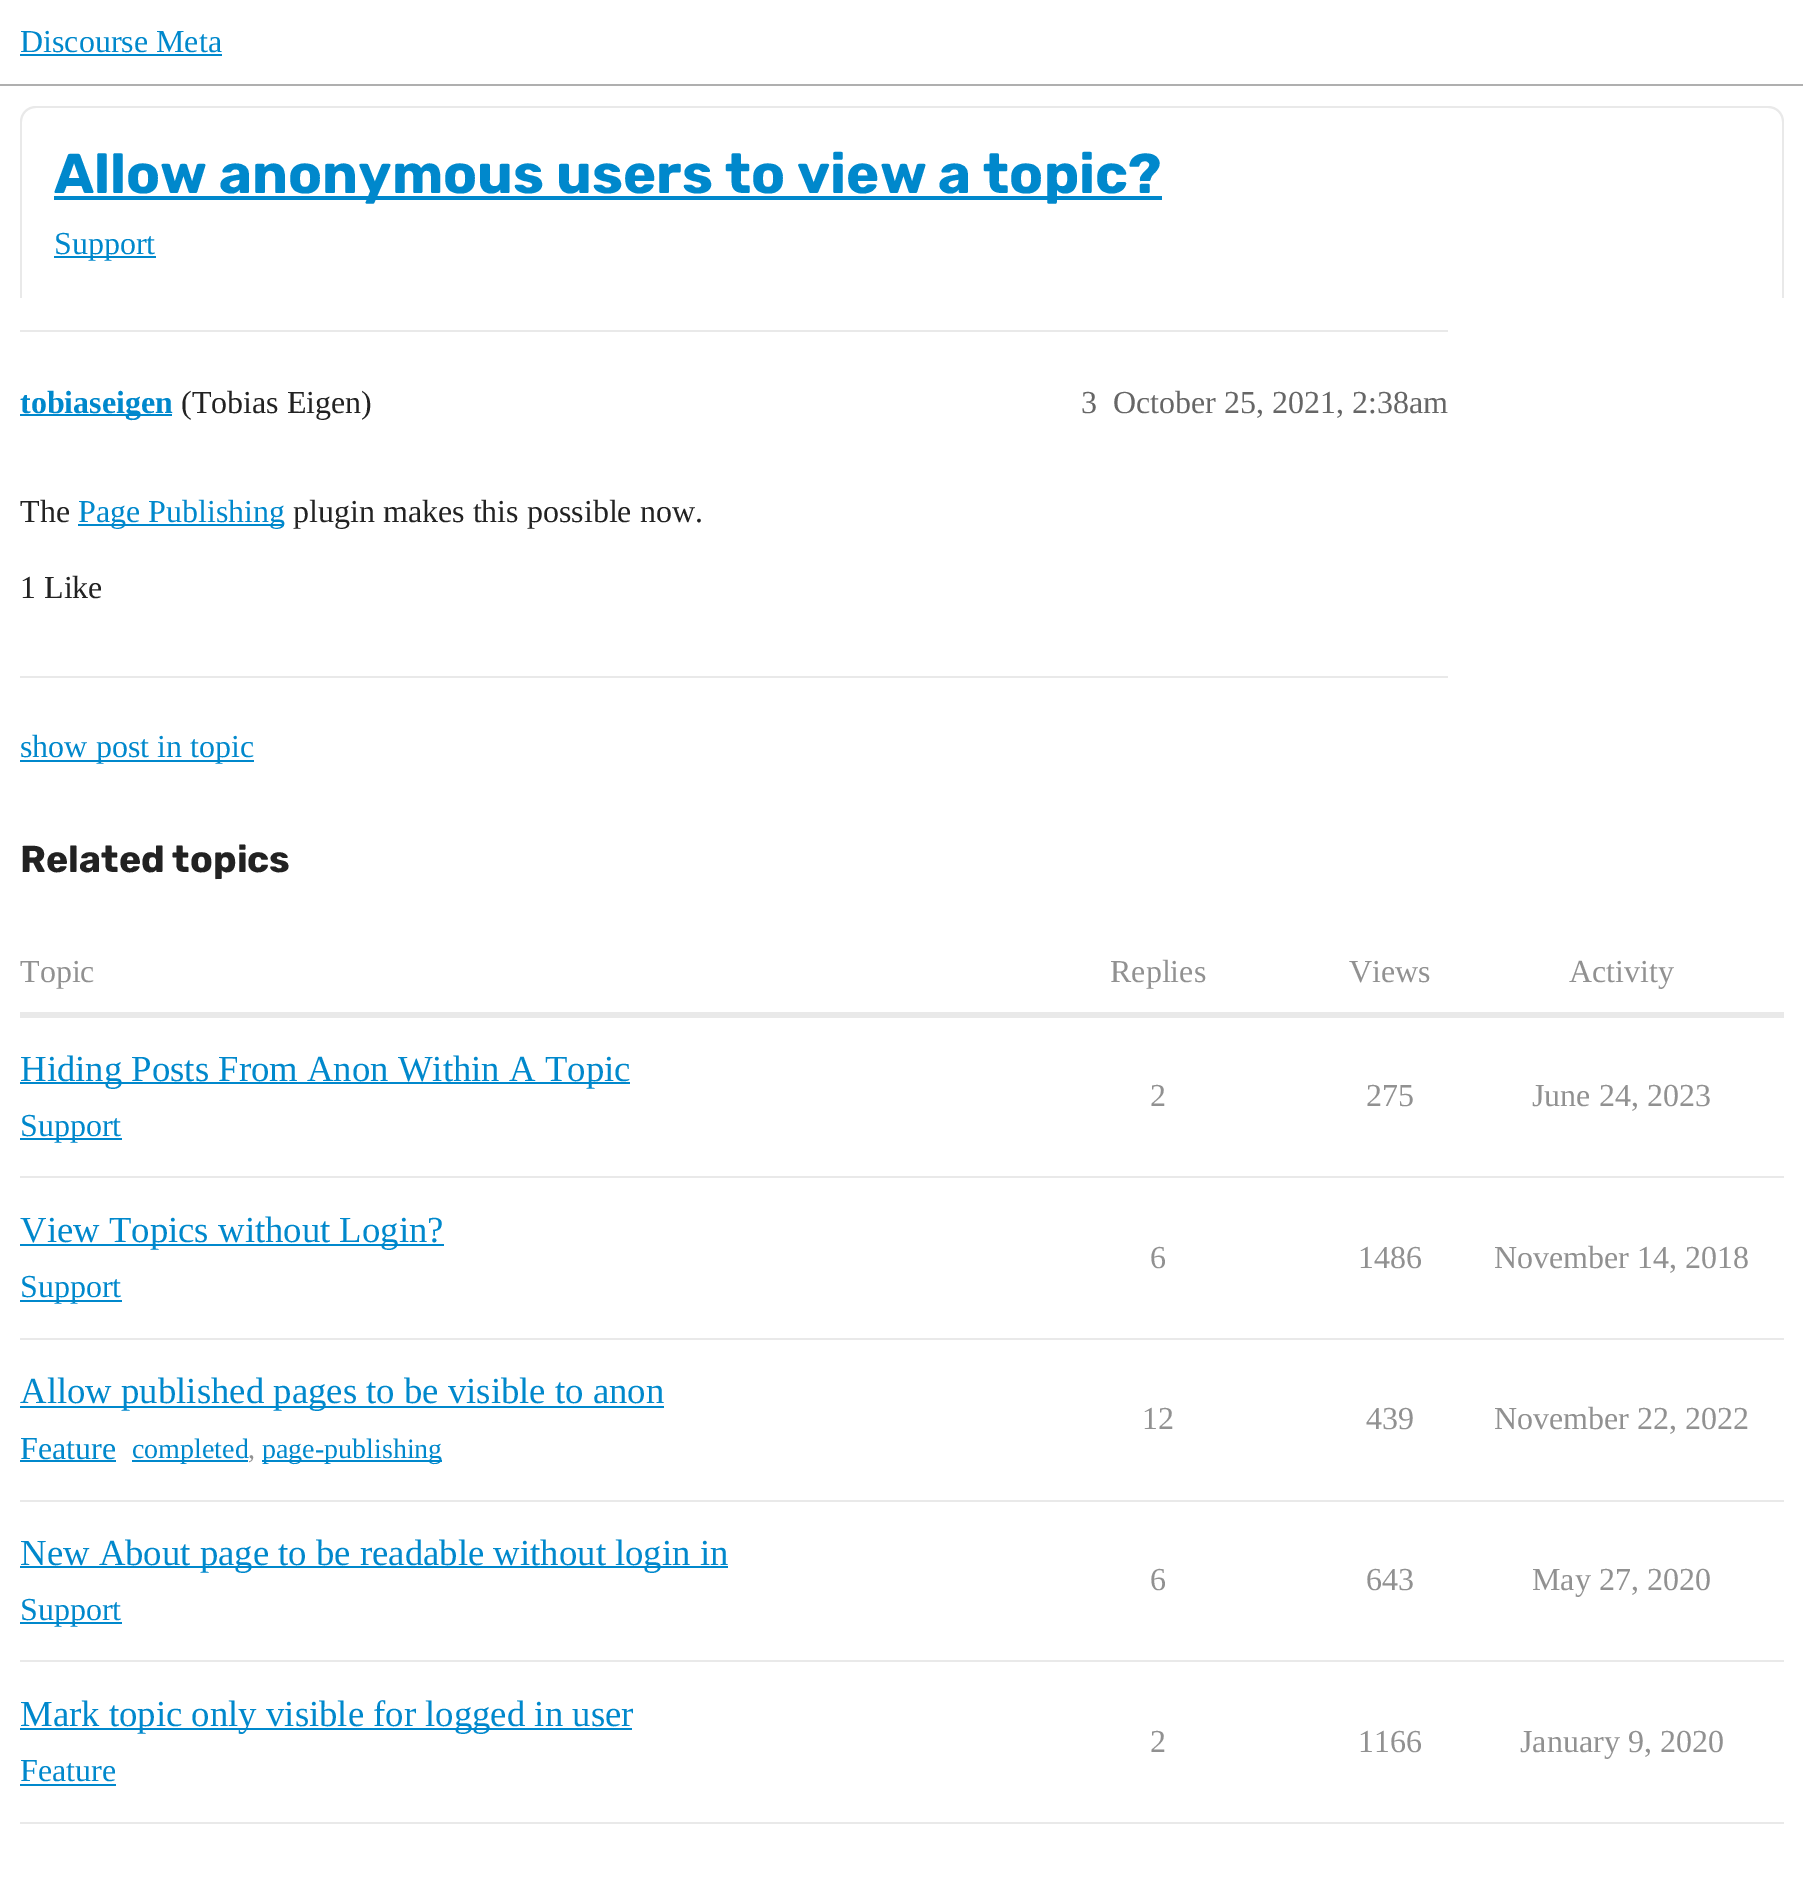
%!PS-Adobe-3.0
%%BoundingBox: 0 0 1803 1889
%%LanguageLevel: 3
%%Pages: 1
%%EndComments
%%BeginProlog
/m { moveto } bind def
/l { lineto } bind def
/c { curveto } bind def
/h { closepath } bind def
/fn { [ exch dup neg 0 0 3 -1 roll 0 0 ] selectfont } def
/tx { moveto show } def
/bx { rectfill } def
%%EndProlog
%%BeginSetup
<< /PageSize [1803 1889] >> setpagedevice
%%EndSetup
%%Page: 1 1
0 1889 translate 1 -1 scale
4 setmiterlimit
1 setgray
0 0 1803 1889 bx
0.686 setgray
0 84 1803 2 bx
/LiberationSerif-Regular 32 fn
0 0.533 0.8 setrgbcolor
(Discourse Meta) 20 52 tx
20 54 202 2 bx
0.914 setgray
36 106 m 1768 106 l 1777 106 1784 113 1784 122 c 1784 298 l 20 298 l 20 122 l 20 113 27 106 36 106 c h 36 108 m 1768 108 l 1776 108 1782 114 1782 122 c 1782 298 l 22 298 l 22 122 l 22 114 28 108 36 108 c h eofill
0 0.533 0.8 setrgbcolor
54 196 1108 4 bx
/Rubik-Bold 56 fn
(Allow anonymous users to view a topic?) 54 193 tx
54 256 102 2 bx
/LiberationSerif-Regular 32 fn
(Support) 54 254 tx
0.914 setgray
20 330 1428 2 bx
0 0.533 0.8 setrgbcolor
20 414 152 2 bx
/LiberationSerif-Bold 32 fn
(tobiaseigen) 20 413 tx
/LiberationSerif-Regular 32 fn
0.133 setgray
(\(Tobias Eigen\)) 181 413 tx
0.4 setgray
(3) 1081 413 tx
(October 25, 2021, 2:38am) 1113 413 tx
0.133 setgray
(The) 20 522 tx
0 0.533 0.8 setrgbcolor
78 524 206 2 bx
(Page Publishing) 78 522 tx
0.133 setgray
(plugin makes this possible now.) 293 522 tx
(1 Like) 20 598 tx
0.914 setgray
20 676 1428 2 bx
0 0.533 0.8 setrgbcolor
20 760 234 2 bx
(show post in topic) 20 757 tx
/Rubik-Bold 37.5 fn
0.133 setgray
(Related topics) 20 872 tx
/LiberationSerif-Regular 32 fn
0.569 setgray
(Topic) 20 982 tx
(Replies) 1110 982 tx
(Views) 1349 982 tx
(Activity) 1569 982 tx
0.914 setgray
20 1012 1764 6 bx
20 1176 1764 2 bx
0 0.533 0.8 setrgbcolor
20 1082 610 2 bx
/LiberationSerif-Regular 36.75 fn
(Hiding Posts From Anon Within A Topic) 20 1081 tx
20 1138 102 2 bx
/LiberationSerif-Regular 32 fn
(Support) 20 1136 tx
0.569 setgray
(2) 1150 1106 tx
(275) 1366 1106 tx
(June 24, 2023) 1532 1106 tx
0.914 setgray
20 1338 1764 2 bx
0 0.533 0.8 setrgbcolor
20 1244 424 2 bx
/LiberationSerif-Regular 36.75 fn
(View Topics without Login?) 20 1242 tx
20 1300 102 2 bx
/LiberationSerif-Regular 32 fn
(Support) 20 1297 tx
0.569 setgray
(6) 1150 1268 tx
(1486) 1358 1268 tx
(November 14, 2018) 1494 1268 tx
0.914 setgray
20 1500 1764 2 bx
0 0.533 0.8 setrgbcolor
20 1406 644 2 bx
/LiberationSerif-Regular 36.75 fn
(Allow published pages to be visible to anon) 20 1403 tx
/LiberationSerif-Regular 32 fn
(Feature) 20 1459 tx
20 1460 96 2 bx
132 1460 116 2 bx
/LiberationSerif-Regular 28 fn
(completed) 132 1458 tx
0.569 setgray
(,) 248 1458 tx
0 0.533 0.8 setrgbcolor
262 1460 180 2 bx
(page-publishing) 262 1458 tx
/LiberationSerif-Regular 32 fn
0.569 setgray
(12) 1142 1429 tx
(439) 1366 1429 tx
(November 22, 2022) 1494 1429 tx
0.914 setgray
20 1660 1764 2 bx
0 0.533 0.8 setrgbcolor
20 1566 708 2 bx
/LiberationSerif-Regular 36.75 fn
(New About page to be readable without login in) 20 1565 tx
20 1622 102 2 bx
/LiberationSerif-Regular 32 fn
(Support) 20 1620 tx
0.569 setgray
(6) 1150 1590 tx
(643) 1366 1590 tx
(May 27, 2020) 1532 1590 tx
0.914 setgray
20 1822 1764 2 bx
0 0.533 0.8 setrgbcolor
20 1728 612 2 bx
/LiberationSerif-Regular 36.75 fn
(Mark topic only visible for logged in user) 20 1726 tx
/LiberationSerif-Regular 32 fn
(Feature) 20 1781 tx
20 1784 96 2 bx
0.569 setgray
(2) 1150 1752 tx
(1166) 1358 1752 tx
(January 9, 2020) 1520 1752 tx
showpage
%%EOF
